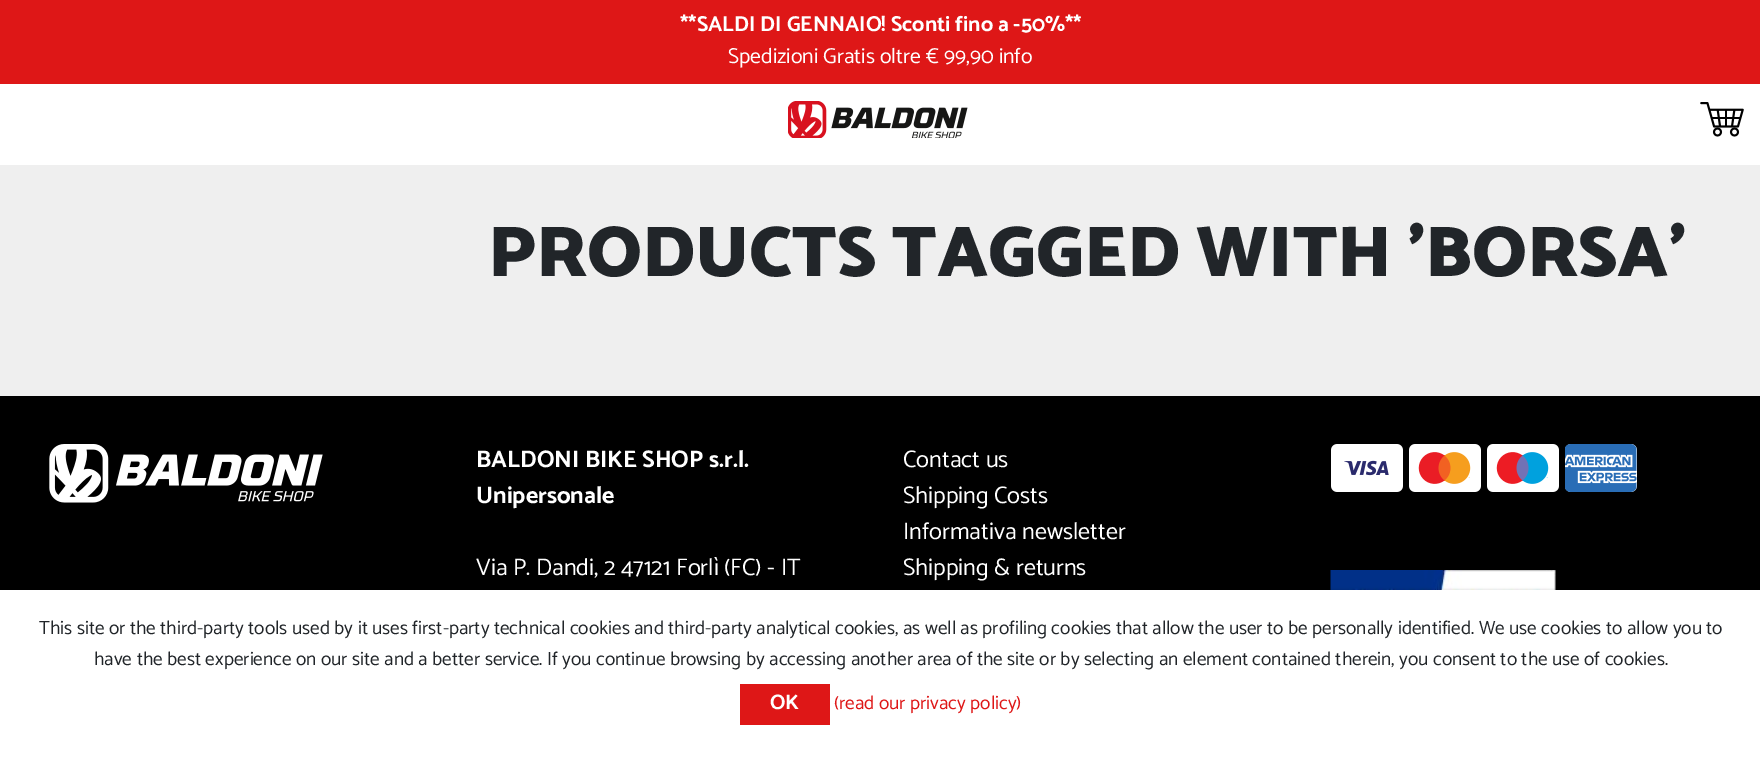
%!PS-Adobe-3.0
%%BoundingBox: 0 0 1760 763
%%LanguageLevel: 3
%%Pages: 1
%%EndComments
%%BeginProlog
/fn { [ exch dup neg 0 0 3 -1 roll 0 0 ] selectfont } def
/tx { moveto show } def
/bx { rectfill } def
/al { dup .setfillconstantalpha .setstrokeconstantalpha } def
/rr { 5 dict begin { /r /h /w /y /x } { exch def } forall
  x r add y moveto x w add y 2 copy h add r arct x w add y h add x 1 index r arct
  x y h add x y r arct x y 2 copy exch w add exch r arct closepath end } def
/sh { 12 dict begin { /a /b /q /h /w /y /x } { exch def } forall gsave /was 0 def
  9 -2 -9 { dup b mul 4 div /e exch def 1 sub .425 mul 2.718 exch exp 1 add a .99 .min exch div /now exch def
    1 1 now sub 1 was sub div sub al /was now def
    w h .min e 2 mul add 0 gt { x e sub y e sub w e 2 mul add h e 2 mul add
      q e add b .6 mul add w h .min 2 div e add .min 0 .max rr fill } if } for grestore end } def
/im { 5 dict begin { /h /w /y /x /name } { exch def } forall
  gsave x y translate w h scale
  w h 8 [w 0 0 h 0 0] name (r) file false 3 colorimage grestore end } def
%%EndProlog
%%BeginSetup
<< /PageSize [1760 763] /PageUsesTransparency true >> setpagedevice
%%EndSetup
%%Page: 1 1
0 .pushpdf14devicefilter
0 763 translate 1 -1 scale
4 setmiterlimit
1 setgray
0 0 1760 763 bx
0.871 0.09 0.09 setrgbcolor
0 0 1760 84 bx
/Catamaran-Bold 21.6 fn
1 setgray
(**SALDI DI GENNAIO! Sconti fino a -50%**) 680 31 tx
/Catamaran-Regular 21.6 fn
(Spedizioni Gratis oltre € 99,90 info) 728 63 tx
(image0.raw) 788 101 180 37 im
(image1.raw) 1700 102 44 35 im
0.937 setgray
0 165 1760 231 bx
/Catamaran-Black 72 fn
0.129 0.145 0.161 setrgbcolor
(PRODUCTS TAGGED WITH 'BORSA') 488 276 tx
0 setgray
0 396 1760 194 bx
(image2.raw) 49 444 274 59 im
/Catamaran-Bold 24 fn
1 setgray
(BALDONI BIKE SHOP s.r.l.) 476 467 tx
(Unipersonale) 476 503 tx
/Catamaran-Regular 24 fn
(Via P. Dandi, 2 47121 Forlì \(FC\) - IT) 476 575 tx
(Contact us) 903 467 tx
(Shipping Costs) 903 503 tx
(Informativa newsletter) 903 539 tx
(Shipping & returns) 903 575 tx
(image3.raw) 1331 444 72 48 im
(image4.raw) 1409 444 72 48 im
(image5.raw) 1487 444 72 48 im
(image6.raw) 1565 444 72 48 im
(image7.raw) 1330 570 226 20 im
0 setgray
0 590 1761 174 0 1.5 0.15 sh
1 setgray
0 590 1760 173 bx
/Catamaran-Regular 19.2 fn
0.129 0.145 0.161 setrgbcolor
(This site or the third-party tools used by it uses first-party technical cookies and third-party analytical cookies, as well as profiling cookies that allow the user to be personally identified. We use cookies to allow you to) 39 634 tx
(have the best experience on our site and a better service. If you continue browsing by accessing another area of the site or by selecting an element contained therein, you consent to the use of cookies.) 94 665 tx
0.871 0.09 0.09 setrgbcolor
740 684 90 41 bx
/Catamaran-Bold 21 fn
1 setgray
(OK) 770 709 tx
/Catamaran-Regular 19.2 fn
0.871 0.09 0.09 setrgbcolor
(\(read our privacy policy\)) 834 709 tx
.poppdf14devicefilter showpage
%%EOF
